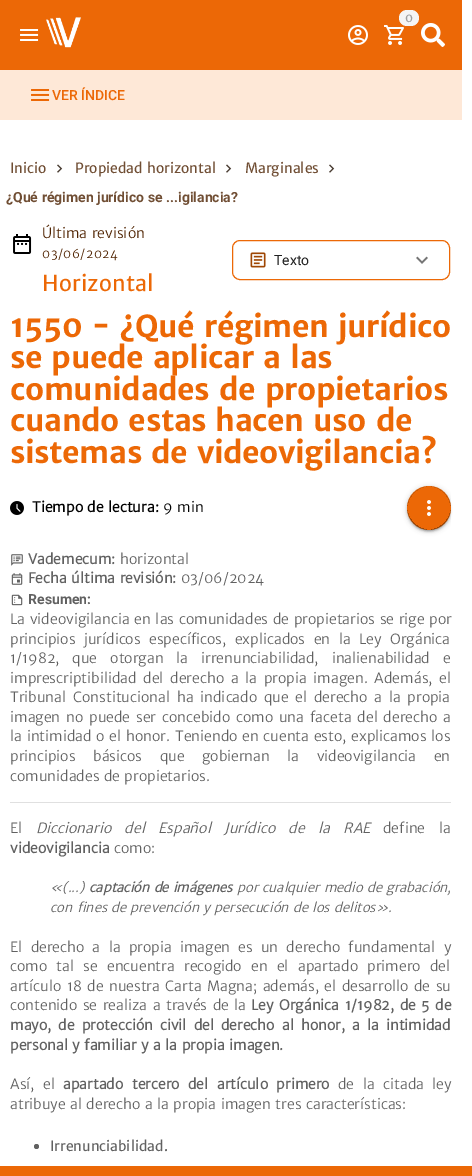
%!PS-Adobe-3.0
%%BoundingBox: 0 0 472 1176
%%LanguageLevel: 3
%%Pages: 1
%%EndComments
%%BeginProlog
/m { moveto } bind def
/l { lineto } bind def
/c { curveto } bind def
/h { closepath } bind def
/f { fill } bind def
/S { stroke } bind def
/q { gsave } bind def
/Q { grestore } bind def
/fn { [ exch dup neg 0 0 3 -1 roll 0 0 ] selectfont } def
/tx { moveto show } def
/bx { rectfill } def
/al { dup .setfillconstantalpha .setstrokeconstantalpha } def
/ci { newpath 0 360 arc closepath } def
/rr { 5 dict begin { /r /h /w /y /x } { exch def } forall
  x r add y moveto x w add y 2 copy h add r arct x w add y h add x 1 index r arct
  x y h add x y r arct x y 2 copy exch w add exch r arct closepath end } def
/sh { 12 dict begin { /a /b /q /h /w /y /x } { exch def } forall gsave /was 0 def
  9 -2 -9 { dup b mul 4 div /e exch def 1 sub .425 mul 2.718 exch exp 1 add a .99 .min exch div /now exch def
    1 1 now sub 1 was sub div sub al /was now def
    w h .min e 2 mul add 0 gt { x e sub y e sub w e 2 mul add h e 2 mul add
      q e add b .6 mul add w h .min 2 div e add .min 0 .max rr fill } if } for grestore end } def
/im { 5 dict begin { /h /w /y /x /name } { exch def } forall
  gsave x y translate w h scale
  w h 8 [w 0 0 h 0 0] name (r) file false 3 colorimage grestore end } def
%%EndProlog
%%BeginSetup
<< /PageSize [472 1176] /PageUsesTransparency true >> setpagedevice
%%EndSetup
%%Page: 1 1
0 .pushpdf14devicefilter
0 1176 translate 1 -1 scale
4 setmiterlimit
1 setgray
0 0 472 1176 bx
0.925 0.408 0.024 setrgbcolor
0 0 462 70 bx
(image0.raw) 20 29 19 12 im
(image1.raw) 46 17 35 31 im
(image2.raw) 384 25 20 20 im
0.961 setgray
399 10 20 16 8 rr f
/MerriweatherSans-Regular 12 fn
0.62 setgray
(0) 405 22 tx
(image3.raw) 348 25 20 20 im
(image4.raw) 421 23 24 24 im
0.996 0.91 0.843 setrgbcolor
0 70 462 50 bx
(image5.raw) 31 89 19 12 im
/Roboto-Medium 14 fn
0.925 0.408 0.024 setrgbcolor
(VER ÍNDICE) 52 100 tx
/MerriweatherSans-Regular 14 fn
0.439 0.306 0.204 setrgbcolor
(Inicio) 10 173 tx
(image6.raw) 57 164 6 9 im
(Propiedad horizontal) 75 173 tx
(image6.raw) 226 164 6 9 im
(Marginales) 245 173 tx
(image6.raw) 329 164 6 9 im
/Roboto-Bold 14 fn
(¿Qué régimen jurídico se ...igilancia?) 6 202 tx
(image7.raw) 13 234 19 20 im
/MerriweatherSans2-Regular 14 fn
0.314 0.141 0.008 setrgbcolor
(Última revisión) 42 238 tx
/MerriweatherSans2-Regular 12 fn
42 258 m 0.5 0 (03/06/2024) ashow
/MerriweatherSans-Regular 21.75 fn
0.925 0.408 0.024 setrgbcolor
42 291 m 0.25 0 (Horizontal) ashow
232.5 240.5 217 39 7.5 rr S
(image8.raw) 250 252 16 16 im
/Roboto-Regular 14 fn
0.129 setgray
(Texto) 274 265 tx
(image9.raw) 416 256 12 8 im
/MerriweatherSans-Bold 30.25 fn
0.925 0.408 0.024 setrgbcolor
10 337 m -0.5 0 (1550 - ¿Qué régimen jurídico) ashow
10 368 m -0.5 0 (se puede aplicar a las) ashow
10 400 m -0.5 0 (comunidades de propietarios) ashow
10 431 m -0.5 0 (cuando estas hacen uso de) ashow
10 463 m -0.5 0 (sistemas de videovigilancia?) ashow
(image10.raw) 10 501 14 14 im
/MerriweatherSans2-Bold 14 fn
0 setgray
(Tiempo de lectura:) 32 512 tx
/MerriweatherSans2-Regular 14 fn
(9 min) 163 512 tx
0.925 0.408 0.024 setrgbcolor
429 508 22 ci f
q
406 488 m 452 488 l 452 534 l 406 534 l h 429 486 m 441 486 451 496 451 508 c 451 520 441 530 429 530 c 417 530 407 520 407 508 c 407 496 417 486 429 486 c h eoclip newpath
0 setgray
409 491 40 40 20 0.5 0.12 sh
Q
q
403 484 m 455 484 l 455 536 l 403 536 l h 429 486 m 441 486 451 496 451 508 c 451 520 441 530 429 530 c 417 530 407 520 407 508 c 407 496 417 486 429 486 c h eoclip newpath
0 setgray
407 488 44 44 22 1 0.14 sh
Q
q
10 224 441 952 rectclip
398 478 m 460 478 l 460 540 l 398 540 l h 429 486 m 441 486 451 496 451 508 c 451 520 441 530 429 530 c 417 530 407 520 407 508 c 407 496 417 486 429 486 c h eoclip newpath
0 setgray
407 487 44 44 22 2.5 0.2 sh
Q
(image11.raw) 427 500 4 16 im
(image12.raw) 11 554 12 12 im
/MerriweatherSans2-Bold 14 fn
0.38 setgray
(Vademecum:) 28 564 tx
/MerriweatherSans2-Regular 14 fn
(horizontal) 120 564 tx
(image13.raw) 11 573 12 12 im
/MerriweatherSans2-Bold 14 fn
(Fecha última revisión:) 28 583 tx
/MerriweatherSans2-Regular 14 fn
(03/06/2024) 181 583 tx
(image14.raw) 11 594 12 12 im
/Roboto-Bold 14 fn
(Resumen:) 28 604 tx
/MerriweatherSans2-Regular 14 fn
10 624 m 0.25 0 32 (La videovigilancia en las comunidades de propietarios se rige por) widthshow
10 644 m 4 0 32 (principios jurídicos específicos, explicados en la Ley Orgánica) widthshow
10 663 m 8.5 0 32 (1/1982, que otorgan la irrenunciabilidad, inalienabilidad e) widthshow
10 683 m 2.25 0 32 (imprescriptibilidad del derecho a la propia imagen. Además, el) widthshow
10 702 m 2.25 0 32 (Tribunal Constitucional ha indicado que el derecho a la propia) widthshow
10 722 m 1.4 0 32 (imagen no puede ser concebido como una faceta del derecho a) widthshow
10 741 m 0.25 0 32 (la intimidad o el honor. Teniendo en cuenta esto, explicamos los) widthshow
10 761 m 13 0 32 (principios básicos que gobiernan la videovigilancia en) widthshow
(comunidades de propietarios.) 10 781 tx
0.878 setgray
10 802 441 1 bx
0.38 setgray
(El) 10 833 tx
/MerriweatherSans-Italic 14 fn
36 833 m 9 0 32 (Diccionario del Español Jurídico de la RAE) widthshow
/MerriweatherSans2-Regular 14 fn
383 833 m 9 0 32 (define la) widthshow
/MerriweatherSans2-Bold 14 fn
(videovigilancia) 10 853 tx
/MerriweatherSans2-Regular 14 fn
(como:) 114 853 tx
/MerriweatherSans-Italic 13 fn
(«\(...\)) 50 892 tx
/MerriweatherSans-BoldItalic 13 fn
(captación de imágenes) 89 892 tx
/MerriweatherSans-Italic 13 fn
(por cualquier medio de grabación,) 237 892 tx
(con fines de prevención y persecución de los delitos».) 50 912 tx
/MerriweatherSans2-Regular 14 fn
10 952 m 3.75 0 32 (El derecho a la propia imagen es un derecho fundamental y) widthshow
10 971 m 4.75 0 32 (como tal se encuentra recogido en el apartado primero del) widthshow
10 991 m 1 0 32 (artículo 18 de nuestra Carta Magna; además, el desarrollo de su) widthshow
10 1010 m 1 0 32 (contenido se realiza a través de la) widthshow
/MerriweatherSans2-Bold 14 fn
251 1010 m 1 0 32 (Ley Orgánica 1/1982, de 5 de) widthshow
10 1030 m 2.6 0 32 (mayo, de protección civil del derecho al honor, a la intimidad) widthshow
(personal y familiar y a la propia imagen.) 10 1050 tx
/MerriweatherSans2-Regular 14 fn
10 1089 m 4 0 32 (Así, el) widthshow
/MerriweatherSans2-Bold 14 fn
63 1089 m 4 0 32 (apartado tercero del artículo primero) widthshow
/MerriweatherSans2-Regular 14 fn
338 1089 m 4 0 32 (de la citada ley) widthshow
(atribuye al derecho a la propia imagen tres características:) 10 1109 tx
36.5 1146.5 2.5 ci f
/MerriweatherSans-Regular 14 fn
(Irrenunciabilidad.) 50 1151 tx
0.925 0.408 0.024 setrgbcolor
0 1166 472 10 bx
.poppdf14devicefilter showpage
%%EOF
